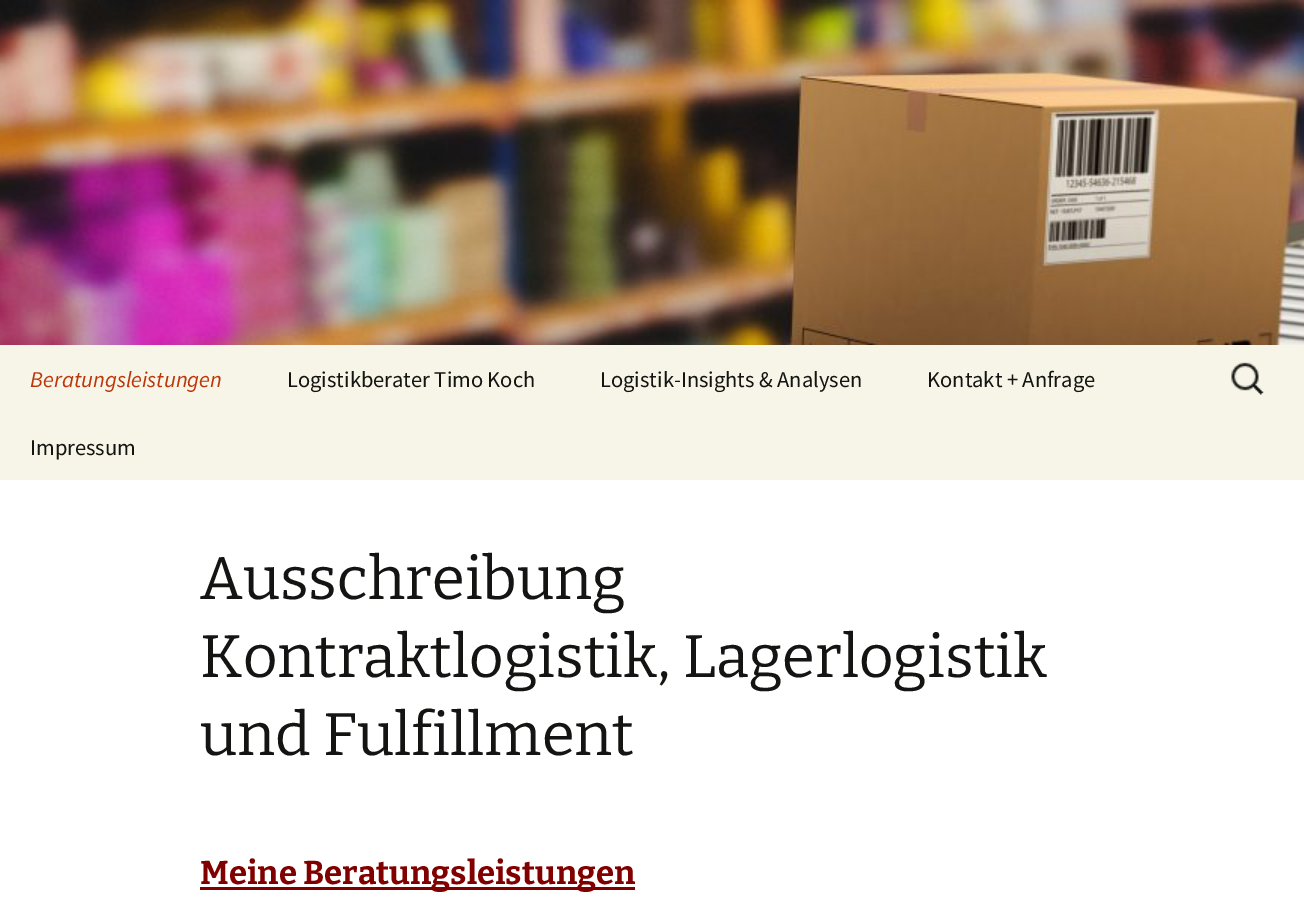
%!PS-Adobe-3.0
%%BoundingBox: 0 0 1304 910
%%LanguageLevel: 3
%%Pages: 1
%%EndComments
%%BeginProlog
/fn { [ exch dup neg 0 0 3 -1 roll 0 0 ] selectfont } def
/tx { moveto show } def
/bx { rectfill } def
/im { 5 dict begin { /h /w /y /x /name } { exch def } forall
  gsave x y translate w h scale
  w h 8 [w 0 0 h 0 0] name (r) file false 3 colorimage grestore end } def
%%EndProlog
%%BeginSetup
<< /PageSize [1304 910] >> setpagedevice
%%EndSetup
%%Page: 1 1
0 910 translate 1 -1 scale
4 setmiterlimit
1 setgray
0 0 1304 910 bx
(image0.raw) 0 0 1304 345 im
0.969 0.961 0.906 setrgbcolor
0 345 1304 135 bx
/SourceSansPro-Italic 22.5 fn
0.737 0.212 0.039 setrgbcolor
(Beratungsleistungen) 30 387 tx
/SourceSansPro-Regular 22.5 fn
0.078 0.078 0.071 setrgbcolor
(Logistikberater Timo Koch) 287 387 tx
(Logistik-Insights & Analysen) 600 387 tx
(Kontakt + Anfrage) 927 387 tx
(Impressum) 30 455 tx
(image1.raw) 1231 362 33 33 im
/Bitter-Regular 60 fn
(Ausschreibung) 200 599 tx
(Kontraktlogistik, Lagerlogistik) 200 677 tx
(und Fulfillment) 200 755 tx
0.502 0 0 setrgbcolor
200 887 435 3 bx
/Bitter-Bold 33 fn
(Meine Beratungsleistungen) 200 884 tx
showpage
%%EOF
